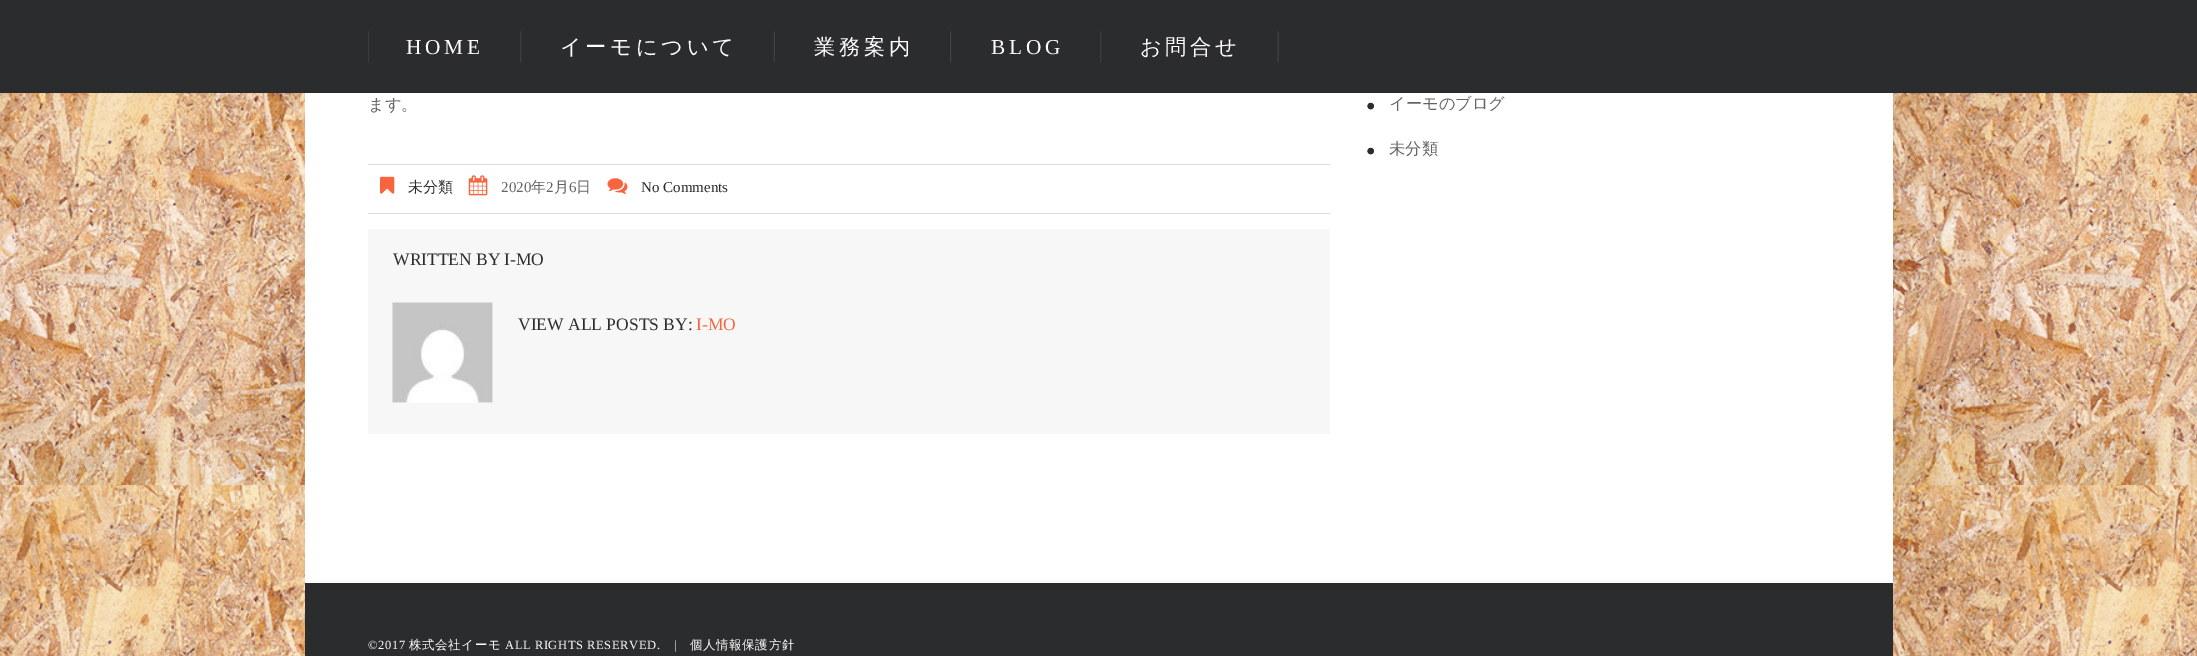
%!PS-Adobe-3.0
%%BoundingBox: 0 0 2197 656
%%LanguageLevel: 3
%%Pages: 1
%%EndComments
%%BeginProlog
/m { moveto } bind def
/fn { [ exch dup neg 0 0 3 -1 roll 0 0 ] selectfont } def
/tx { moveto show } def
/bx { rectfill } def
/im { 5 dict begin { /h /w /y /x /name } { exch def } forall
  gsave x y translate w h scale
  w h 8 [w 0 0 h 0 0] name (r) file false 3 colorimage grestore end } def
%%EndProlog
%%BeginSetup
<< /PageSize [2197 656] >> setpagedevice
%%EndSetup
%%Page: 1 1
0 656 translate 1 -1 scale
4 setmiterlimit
1 setgray
0 0 2197 656 bx
(image0.raw) 0 93 2197 563 im
0.169 0.173 0.176 setrgbcolor
0 0 2197 93 bx
(image1.raw) 368 31 1 32 im
(image2.raw) 520 31 2 32 im
/LiberationSerif-Regular 21.25 fn
1 setgray
406 54 m 3.75 0 (HOME) ashow
(image3.raw) 773 31 2 32 im
/WenQuanYiZenHei-Medium 21.25 fn
560 54 m 3.75 0 (イーモについて) ashow
(image4.raw) 950 31 2 32 im
814 54 m 3.75 0 (業務案内) ashow
(image5.raw) 1100 31 2 32 im
/LiberationSerif-Regular 21.25 fn
991 54 m 3.75 0 (BLOG) ashow
(image6.raw) 1277 31 2 32 im
/WenQuanYiZenHei-Medium 21.25 fn
1140 54 m 3.75 0 (お問合せ) ashow
305 93 1588 490 bx
/WenQuanYiZenHei-Medium 16.25 fn
0.392 setgray
(ます。) 368 110 tx
0.867 setgray
368 164 962 1 bx
368 213 962 1 bx
(image7.raw) 380 176 15 18 im
/WenQuanYiZenHei-Medium 15 fn
0.176 0.169 0.173 setrgbcolor
(未分類) 408 192 tx
(image8.raw) 468 175 20 21 im
/LiberationSerif-Regular 15 fn
0.392 setgray
(2020) 501 192 tx
/WenQuanYiZenHei-Medium 15 fn
(年) 531 192 tx
/LiberationSerif-Regular 15 fn
(2) 546 192 tx
/WenQuanYiZenHei-Medium 15 fn
(月) 554 192 tx
/LiberationSerif-Regular 15 fn
(6) 569 192 tx
/WenQuanYiZenHei-Medium 15 fn
(日) 576 192 tx
(image9.raw) 607 178 21 16 im
/LiberationSerif-Regular 15 fn
0.176 0.169 0.173 setrgbcolor
(No Comments) 641 192 tx
0.969 setgray
368 229 962 205 bx
/LiberationSerif-Regular 17.5 fn
0.176 0.169 0.173 setrgbcolor
(WRITTEN BY) 393 265 tx
(I-MO) 504 265 tx
1 setgray
393 303 100 100 bx
(image10.raw) 392 302 101 101 im
0.176 0.169 0.173 setrgbcolor
(VIEW ALL POSTS BY:) 518 330 tx
0.969 0.392 0.239 setrgbcolor
(I-MO) 696 330 tx
(image11.raw) 1367 102 7 8 im
(image12.raw) 1367 102 7 8 im
/WenQuanYiZenHei-Medium 16.25 fn
0.392 setgray
(イーモのブログ) 1389 109 tx
(image11.raw) 1367 147 7 8 im
(image12.raw) 1367 147 7 8 im
(未分類) 1389 154 tx
0.169 0.173 0.176 setrgbcolor
305 583 1588 73 bx
/LiberationSerif-Regular 12.5 fn
1 setgray
368 649 m 0.6 0 (©2017) ashow
/WenQuanYiZenHei-Medium 12.5 fn
409 649 m 0.6 0 (株式会社イーモ) ashow
/LiberationSerif-Regular 12.5 fn
505 649 m 0.6 0 (ALL RIGHTS RESERVED.) ashow
674 649 m 0.6 0 (|) ashow
/WenQuanYiZenHei-Medium 12.5 fn
690 649 m 0.6 0 (個人情報保護方針) ashow
showpage
%%EOF
